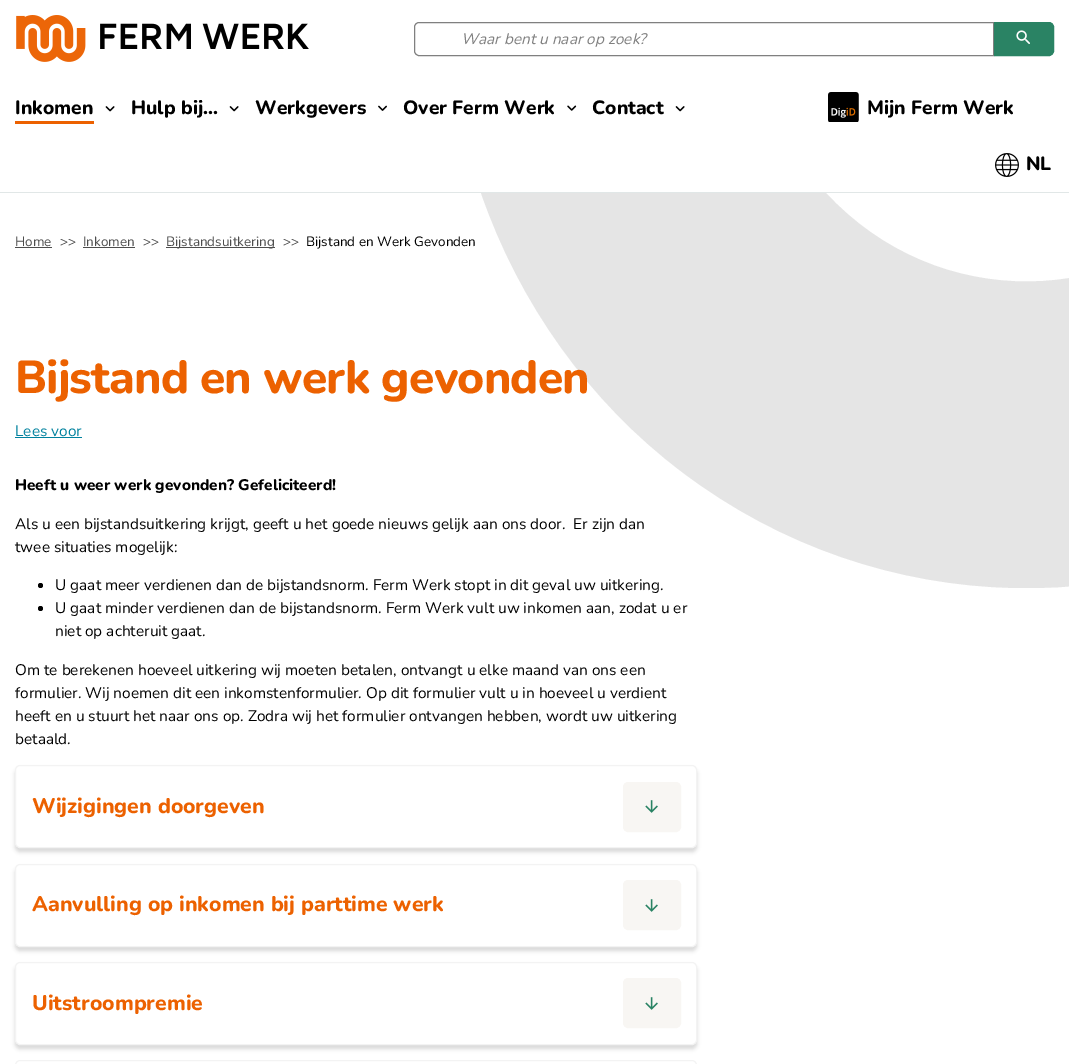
%!PS-Adobe-3.0
%%BoundingBox: 0 0 1069 1064
%%LanguageLevel: 3
%%Pages: 1
%%EndComments
%%BeginProlog
/m { moveto } bind def
/l { lineto } bind def
/c { curveto } bind def
/h { closepath } bind def
/f { fill } bind def
/S { stroke } bind def
/q { gsave } bind def
/Q { grestore } bind def
/fn { [ exch dup neg 0 0 3 -1 roll 0 0 ] selectfont } def
/tx { moveto show } def
/bx { rectfill } def
/al { dup .setfillconstantalpha .setstrokeconstantalpha } def
/ci { newpath 0 360 arc closepath } def
/rr { 5 dict begin { /r /h /w /y /x } { exch def } forall
  x r add y moveto x w add y 2 copy h add r arct x w add y h add x 1 index r arct
  x y h add x y r arct x y 2 copy exch w add exch r arct closepath end } def
/sh { 12 dict begin { /a /b /q /h /w /y /x } { exch def } forall gsave /was 0 def
  9 -2 -9 { dup b mul 4 div /e exch def 1 sub .425 mul 2.718 exch exp 1 add a .99 .min exch div /now exch def
    1 1 now sub 1 was sub div sub al /was now def
    w h .min e 2 mul add 0 gt { x e sub y e sub w e 2 mul add h e 2 mul add
      q e add b .6 mul add w h .min 2 div e add .min 0 .max rr fill } if } for grestore end } def
/im { 5 dict begin { /h /w /y /x /name } { exch def } forall
  gsave x y translate w h scale
  w h 8 [w 0 0 h 0 0] name (r) file false 3 colorimage grestore end } def
%%EndProlog
%%BeginSetup
<< /PageSize [1069 1064] /PageUsesTransparency true >> setpagedevice
%%EndSetup
%%Page: 1 1
0 .pushpdf14devicefilter
0 1064 translate 1 -1 scale
4 setmiterlimit
1 setgray
0 0 1069 1064 bx
0.882 0.906 0.906 setrgbcolor
0 192 1069 1 bx
(image0.raw) 16 15 293 47 im
0.502 setgray
419 22.5 m 993.5 22.5 l 993.5 55.5 l 419 55.5 l 416.5 55.5 414.5 53.5 414.5 51 c 414.5 27 l 414.5 24.5 416.5 22.5 419 22.5 c h S
/Nunito-Italic 15.4 fn
(Waar bent u naar op zoek?) 461 44 tx
0.165 0.514 0.392 setrgbcolor
994.5 22.5 m 1049 22.5 l 1051.5 22.5 1053.5 24.5 1053.5 27 c 1053.5 51 l 1053.5 53.5 1051.5 55.5 1049 55.5 c 994.5 55.5 l h q f Q
S
(image1.raw) 1016 30 14 14 im
/Nunito-ExtraBold 19.25 fn
0 setgray
(Inkomen) 15 114 tx
0.925 0.38 0 setrgbcolor
15 121 79 3 bx
(image2.raw) 105 106 10 6 im
0 setgray
(Hulp bij...) 131 114 tx
(image3.raw) 229 106 10 6 im
(Werkgevers) 255 114 tx
(image4.raw) 378 105 9 6 im
(Over Ferm Werk) 403 114 tx
(image5.raw) 567 105 10 6 im
(Contact) 592 114 tx
(image6.raw) 675 106 10 6 im
(image7.raw) 828 92 31 30 im
(Mijn Ferm Werk) 867 114 tx
(image8.raw) 995 153 24 24 im
(NL) 1026 170 tx
/Nunito-Regular 13.5 fn
0.302 setgray
(Home) 15 246 tx
15 247 37 1 bx
(>>) 60 246 tx
(Inkomen) 83 246 tx
83 247 52 1 bx
(>>) 143 246 tx
166 247 109 1 bx
(Bijstandsuitkering) 166 246 tx
(>>) 283 246 tx
0 setgray
(Bijstand en Werk Gevonden) 306 246 tx
q
481 193 588 395 rectclip
0.898 setgray
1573 193 m 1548 268 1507 336 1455 396 c 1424 431 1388 462 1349 488 c 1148 626 880 622 682 472 c 589 402 519 303 481 193 c 826 193 l 938 314 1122 308 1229 193 c h 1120 581 m 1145 576 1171 570 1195 563 c 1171 570 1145 576 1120 581 c h f
Q
/Nunito-ExtraBold 46.25 fn
0.925 0.38 0 setrgbcolor
15 393 m -0.9 0 (Bijstand en werk gevonden) ashow
/Nunito-Regular 15.4 fn
0 0.506 0.62 setrgbcolor
(Lees voor) 15 436 tx
15 437 67 1 bx
/Nunito-ExtraBold 15.4 fn
0 setgray
(Heeft u weer werk gevonden? Gefeliciteerd!) 15 490 tx
/Nunito-Regular 15.4 fn
(Als u een bijstandsuitkering krijgt, geeft u het goede nieuws gelijk aan ons door.  Er zijn dan) 15 529 tx
(twee situaties mogelijk:) 15 552 tx
40.5 585.5 2.5 ci f
(U gaat meer verdienen dan de bijstandsnorm. Ferm Werk stopt in dit geval uw uitkering.) 55 590 tx
40.5 608.5 2.5 ci f
(U gaat minder verdienen dan de bijstandsnorm. Ferm Werk vult uw inkomen aan, zodat u er) 55 613 tx
(niet op achteruit gaat.) 55 636 tx
(Om te berekenen hoeveel uitkering wij moeten betalen, ontvangt u elke maand van ons een) 15 675 tx
(formulier. Wij noemen dit een inkomstenformulier. Op dit formulier vult u in hoeveel u verdient) 15 698 tx
(heeft en u stuurt het naar ons op. Zodra wij het formulier ontvangen hebben, wordt uw uitkering) 15 721 tx
(betaald.) 15 744 tx
15 769 682 83 5 2 0.15 sh
1 setgray
15.5 765.5 681 82 4.5 rr q f Q
0.953 setgray
S
/Nunito-ExtraBold 21.2 fn
0.925 0.38 0 setrgbcolor
(Wijzigingen doorgeven) 32 813 tx
0.973 0.965 0.953 setrgbcolor
623.5 782.5 57 49 4.5 rr q f Q
S
(image9.raw) 645 800 13 13 im
0 setgray
15 868 682 83 5 2 0.15 sh
1 setgray
15.5 864.5 681 82 4.5 rr q f Q
0.953 setgray
S
0.925 0.38 0 setrgbcolor
(Aanvulling op inkomen bij parttime werk) 32 911 tx
0.973 0.965 0.953 setrgbcolor
623.5 880.5 57 49 4.5 rr q f Q
S
(image9.raw) 645 899 13 13 im
0 setgray
15 966 682 83 5 2 0.15 sh
1 setgray
15.5 962.5 681 82 4.5 rr q f Q
0.953 setgray
S
0.925 0.38 0 setrgbcolor
(Uitstroompremie) 32 1010 tx
0.973 0.965 0.953 setrgbcolor
623.5 978.5 57 49 4.5 rr q f Q
S
(image9.raw) 645 997 13 13 im
0.953 setgray
15.5 1060.5 681 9 4.5 rr S
.poppdf14devicefilter showpage
%%EOF
